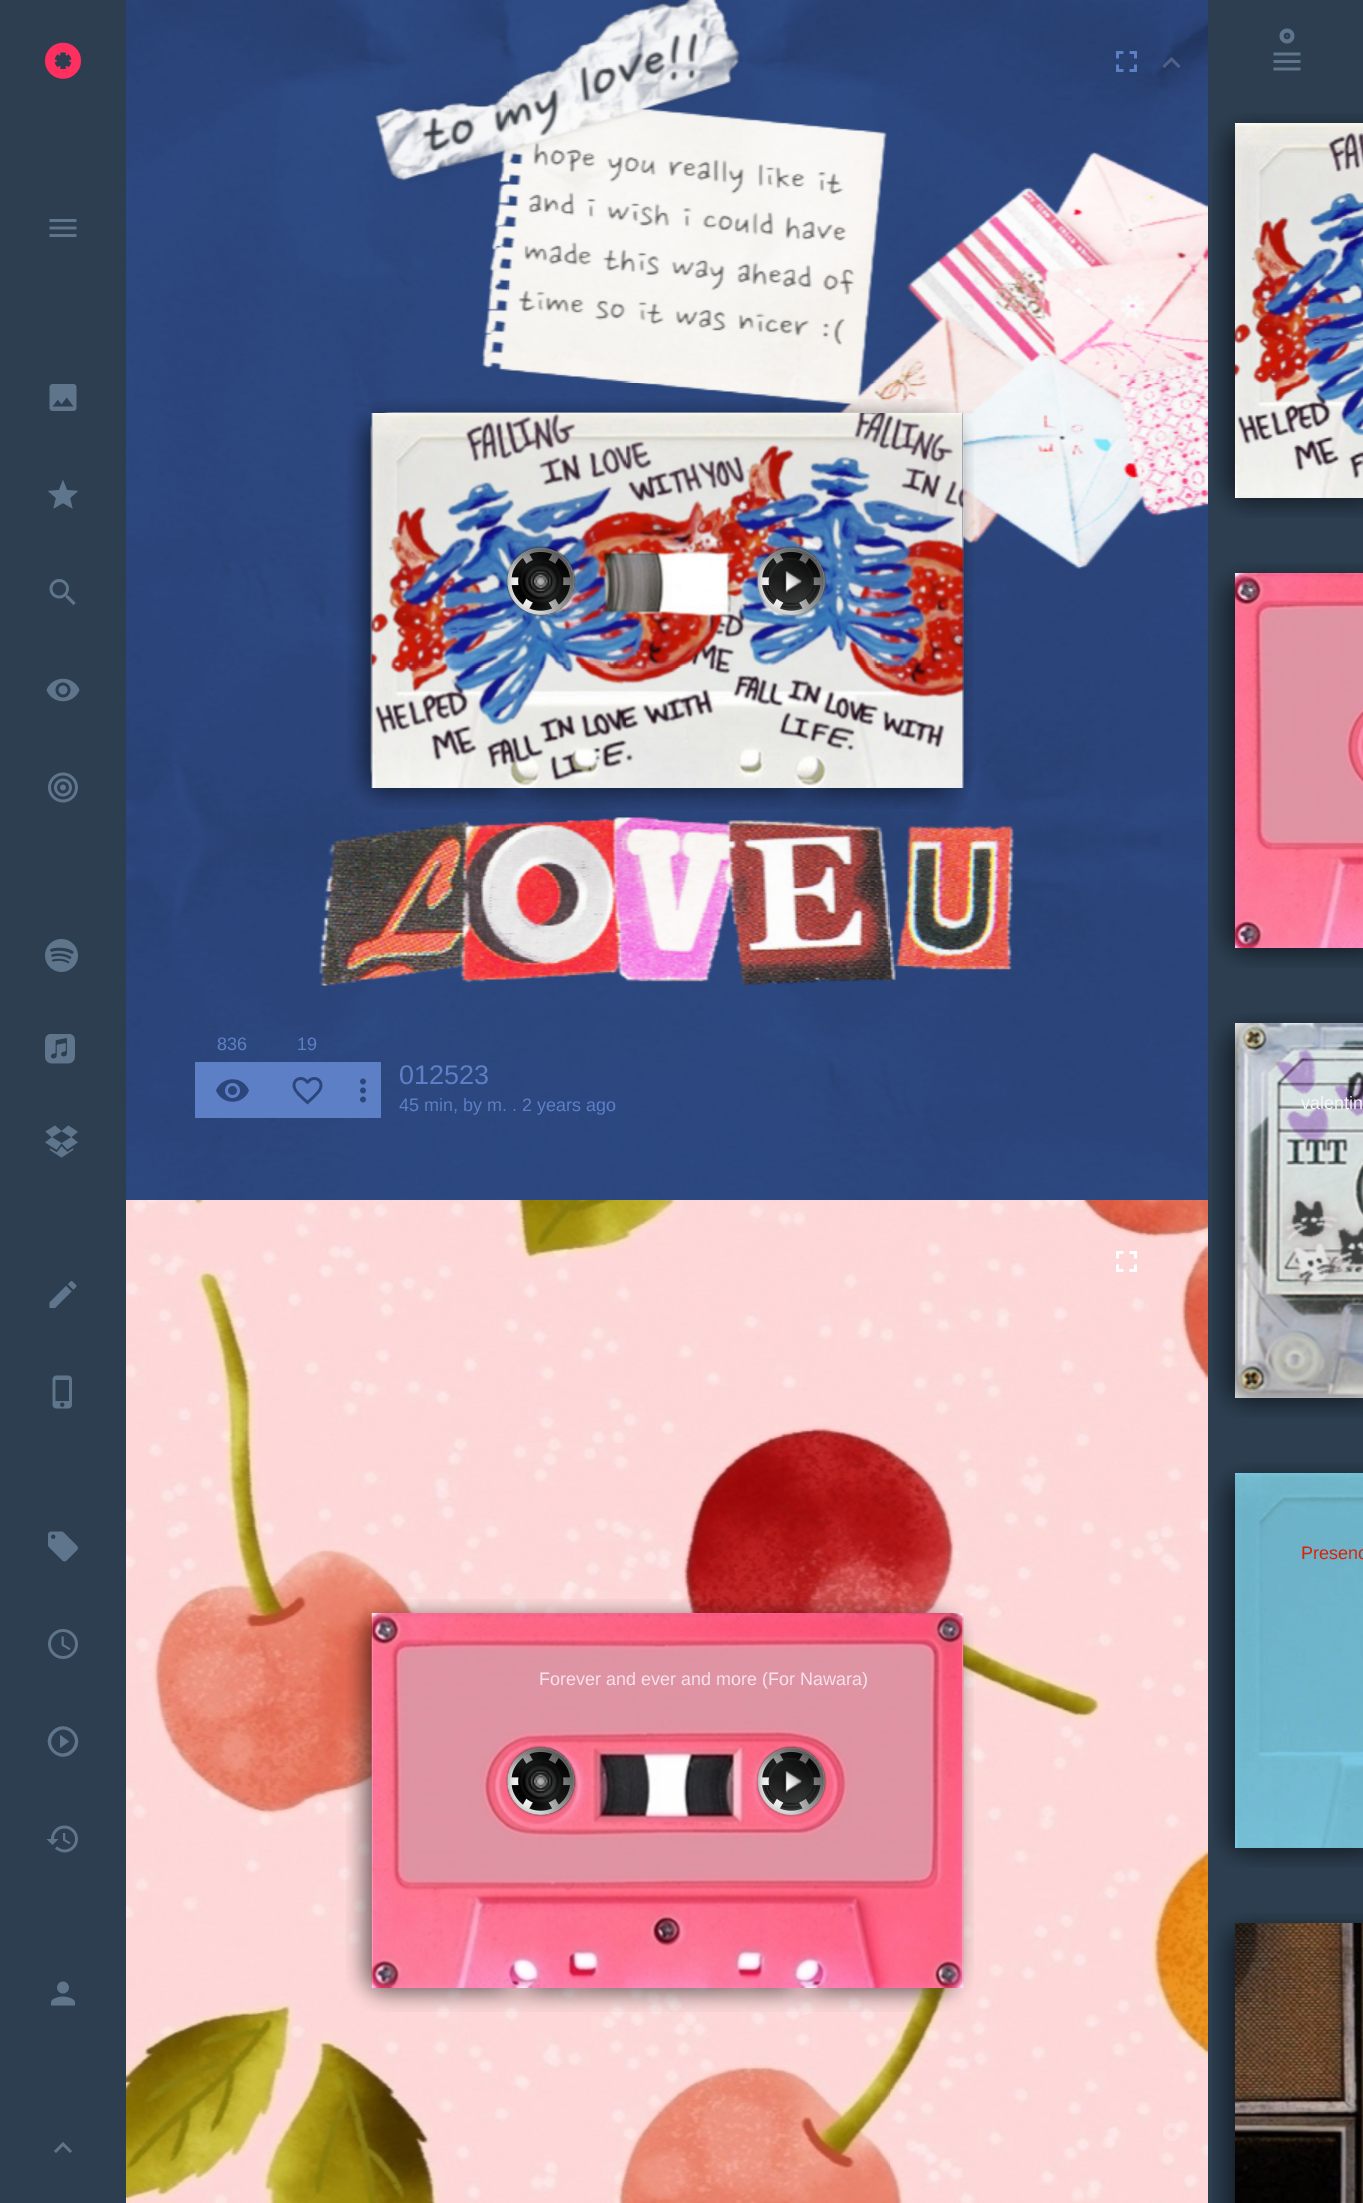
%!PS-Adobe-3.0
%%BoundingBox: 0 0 1363 2203
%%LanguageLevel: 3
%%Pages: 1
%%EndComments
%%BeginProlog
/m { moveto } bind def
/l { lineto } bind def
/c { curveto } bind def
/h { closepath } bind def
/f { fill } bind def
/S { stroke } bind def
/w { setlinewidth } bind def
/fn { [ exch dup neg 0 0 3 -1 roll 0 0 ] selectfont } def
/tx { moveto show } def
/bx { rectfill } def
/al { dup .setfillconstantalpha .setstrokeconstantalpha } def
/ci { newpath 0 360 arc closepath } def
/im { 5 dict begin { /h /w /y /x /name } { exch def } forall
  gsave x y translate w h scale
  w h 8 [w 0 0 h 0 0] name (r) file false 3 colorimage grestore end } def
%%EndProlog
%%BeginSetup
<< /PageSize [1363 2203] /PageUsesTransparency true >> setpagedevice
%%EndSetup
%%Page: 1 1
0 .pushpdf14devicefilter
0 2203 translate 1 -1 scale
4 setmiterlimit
0.173 0.243 0.314 setrgbcolor
0 0 1363 2203 bx
(image0.raw) 45 42 36 37 im
(image1.raw) 49 219 28 18 im
(image2.raw) 49 384 28 27 im
0.373 0.459 0.545 setrgbcolor
63 503 m 53.5 508.5 l 56 498 l 48 491 l 59 490 l 63 480 l 67 490 l 78 491 l 70 498 l 72.5 508.5 l h f
(image3.raw) 49 579 27 26 im
(image4.raw) 46 678 34 24 im
(image5.raw) 48 772 30 31 im
(image6.raw) 45 939 33 33 im
(image7.raw) 45 1034 30 30 im
(image8.raw) 45 1125 33 33 im
(image9.raw) 49 1281 28 27 im
(image10.raw) 52 1375 20 34 im
(image11.raw) 48 1531 30 31 im
(image12.raw) 48 1629 30 30 im
54.5 1750 m 65.5 1761 82.5 1744 71.5 1733 c 60.5 1722 43.5 1739 54.5 1750 c h 52.5 1731 m 66.5 1717 87.5 1738 73.5 1752 c 59.5 1766 38.5 1745 52.5 1731 c h 60 1748 m 60 1735 l 69 1741.5 l h f
(image13.raw) 46 1825 32 28 im
(image14.raw) 51 1981 24 25 im
56 2153 m 54 2151 l 63 2142 l 72 2151 l 70 2153 l 63 2146 l h f
(image15.raw) 126 0 1082 1200 im
0.2 al
1 0.996 1 setrgbcolor
1164.5 68 m 1162.5 66 l 1171.5 57 l 1180.5 66 l 1178.5 68 l 1171.5 61 l h f
1 al
(image16.raw) 347 399 627 410 im
0.173 0.275 0.486 setrgbcolor
372 413 591 375 bx
(image17.raw) 371 413 593 375 im
(image20.raw) 506 548 69 68 im
(image19.raw) 507 547 68 68 im
(image18.raw) 505 545 71 72 im
(image23.raw) 758 548 63 63 im
(image22.raw) 757 547 68 68 im
(image21.raw) 756 545 71 72 im
(image24.raw) 1116 51 21 21 im
/LiberationSans-Regular 18 fn
0.365 0.498 0.773 setrgbcolor
(836) 217 1050 tx
195 1062 186 54 bx
(image25.raw) 216 1079 33 23 im
(19) 297 1050 tx
(image26.raw) 292 1077 31 28 im
(image27.raw) 360 1078 6 25 im
/LiberationSans-Regular 27 fn
(012523) 399 1084 tx
/LiberationSans-Regular 18 fn
(45 min, by m. . 2 years ago) 399 1111 tx
195 1116 186 2 bx
(image28.raw) 126 1200 1082 1003 im
(image29.raw) 1116 1251 21 21 im
(image30.raw) 346 1599 628 413 im
0.984 0.851 0.855 setrgbcolor
372 1613 591 375 bx
(image31.raw) 371 1613 593 375 im
0.969 0.886 0.933 setrgbcolor
(Forever and ever and more \(For Nawara\)) 539 1685 tx
(image34.raw) 506 1748 69 68 im
(image33.raw) 507 1747 68 68 im
(image32.raw) 505 1745 71 73 im
(image37.raw) 758 1748 63 63 im
(image36.raw) 757 1747 68 68 im
(image35.raw) 756 1745 71 73 im
0.2 al
1 0.996 1 setrgbcolor
5 w
1172 2132 6.5 ci S
1 al
(image38.raw) 1279 28 16 16 im
(image39.raw) 1273 52 28 19 im
(image40.raw) 1212 113 151 405 im
(image41.raw) 1235 123 128 375 im
(image40.raw) 1212 563 151 405 im
(image42.raw) 1235 573 128 375 im
(image40.raw) 1212 1013 151 405 im
(image43.raw) 1235 1023 128 375 im
0.969 setgray
(valentin) 1301 1109 tx
(image40.raw) 1212 1463 151 405 im
(image44.raw) 1235 1473 128 375 im
0.859 0.133 0.024 setrgbcolor
(Presenc) 1301 1559 tx
(image45.raw) 1212 1913 151 290 im
(image46.raw) 1235 1923 128 280 im
.poppdf14devicefilter showpage
%%EOF
